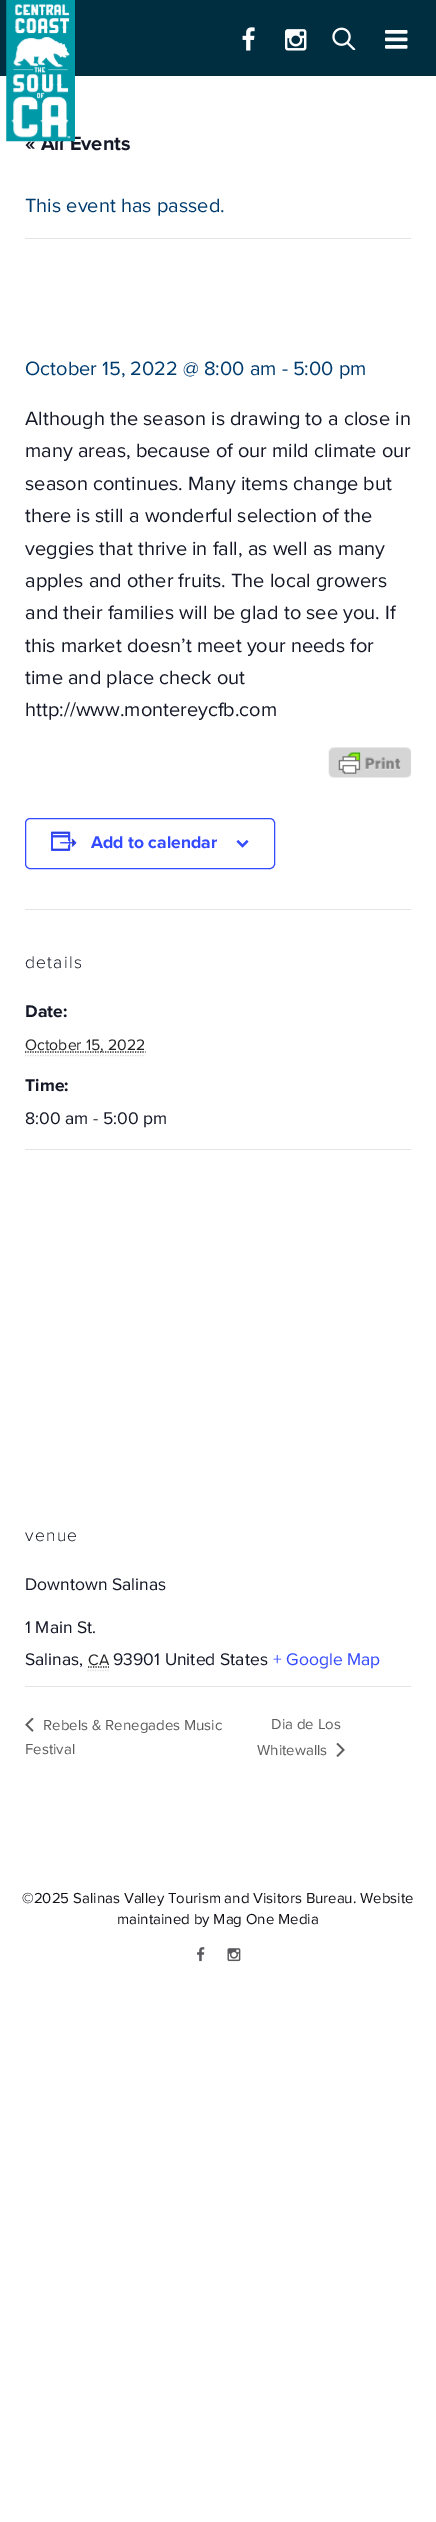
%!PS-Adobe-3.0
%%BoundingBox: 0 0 436 2522
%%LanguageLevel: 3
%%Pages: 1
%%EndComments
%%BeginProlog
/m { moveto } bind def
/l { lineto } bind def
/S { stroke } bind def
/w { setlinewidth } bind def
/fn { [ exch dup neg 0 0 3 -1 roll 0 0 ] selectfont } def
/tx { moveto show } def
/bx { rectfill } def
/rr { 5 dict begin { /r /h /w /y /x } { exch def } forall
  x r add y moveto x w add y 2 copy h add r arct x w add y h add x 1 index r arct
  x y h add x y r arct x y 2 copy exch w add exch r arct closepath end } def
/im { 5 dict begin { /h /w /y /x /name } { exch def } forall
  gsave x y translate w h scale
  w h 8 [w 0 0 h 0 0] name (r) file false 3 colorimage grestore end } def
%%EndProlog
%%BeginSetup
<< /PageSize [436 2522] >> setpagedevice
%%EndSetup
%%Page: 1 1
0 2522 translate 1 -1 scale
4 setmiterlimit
1 setgray
0 0 436 2522 bx
0 0.18 0.255 setrgbcolor
0 0 436 75 bx
0.004 0.173 0.243 setrgbcolor
0 75 436 1 bx
/ProximaNova-Bold 20 fn
0.078 0.094 0.153 setrgbcolor
(« All Events) 25 150 tx
(image0.raw) 6 0 69 142 im
(image1.raw) 242 27 13 24 im
(image2.raw) 285 29 22 22 im
(image3.raw) 332 27 24 23 im
(image4.raw) 385 30 23 19 im
0.894 setgray
25 238 386 1 bx
/ProximaNova-Regular 20 fn
0 0.231 0.431 setrgbcolor
(This event has passed.) 25 212 tx
(October 15, 2022 @ 8:00 am - 5:00 pm) 25 375 tx
0.078 0.094 0.153 setrgbcolor
(Although the season is drawing to a close in) 25 425 tx
(many areas, because of our mild climate our) 25 457 tx
(season continues. Many items change but) 25 490 tx
(there is still a wonderful selection of the) 25 522 tx
(veggies that thrive in fall, as well as many) 25 555 tx
(apples and other fruits. The local growers) 25 587 tx
(and their families will be glad to see you. If) 25 619 tx
(this market doesn’t meet your needs for) 25 652 tx
(time and place check out) 25 684 tx
(http://www.montereycfb.com) 25 716 tx
(image5.raw) 328 747 83 31 im
0.2 0.29 1 setrgbcolor
25.5 818.5 249 50 4.5 rr S
(image6.raw) 51 831 26 20 im
/ProximaNova-Bold 17.5 fn
(Add to calendar) 91 848 tx
(image7.raw) 236 840 13 8 im
0.894 setgray
25 909 386 1 bx
/ProximaNova-Light 17.5 fn
0.078 0.094 0.153 setrgbcolor
25 968 m 1.25 0 (details) ashow
/ProximaNova-Bold 17.5 fn
(Date:) 25 1017 tx
0.133 setgray
1.2 w
[1.25 1.25] 0 setdash
25 1052 m 145.5 1052 l S
/ProximaNova-Regular 15.75 fn
(October 15, 2022) 25 1050 tx
0.867 setgray
25 1055.5 m 145 1055.5 l S
/ProximaNova-Bold 17.5 fn
0.078 0.094 0.153 setrgbcolor
(Time:) 25 1091 tx
/ProximaNova-Regular 17.5 fn
(8:00 am - 5:00 pm) 25 1124 tx
0.894 setgray
25 1149 386 1 bx
/ProximaNova-Light 17.5 fn
0.078 0.094 0.153 setrgbcolor
25 1541 m 1.25 0 (venue) ashow
/ProximaNova-Regular 17.5 fn
(Downtown Salinas) 25 1590 tx
(1 Main St.) 25 1633 tx
(Salinas,) 25 1665 tx
/ProximaNova-Regular 15.75 fn
0.133 setgray
(CA) 88 1665 tx
0.867 setgray
87.5 1670.5 m 109 1670.5 l S
0.133 setgray
88 1667 m 109 1667 l S
/ProximaNova-Regular 17.5 fn
0.078 0.094 0.153 setrgbcolor
(93901 United States) 113 1665 tx
0.2 0.29 1 setrgbcolor
(+ Google Map) 273 1665 tx
0.894 setgray
25 1686 386 1 bx
(image8.raw) 25 1718 9 14 im
/ProximaNova-Regular 15 fn
0.365 setgray
(Rebels & Renegades Music) 43 1730 tx
(Festival) 25 1754 tx
(Dia de Los) 271 1729 tx
(Whitewalls) 257 1755 tx
(image9.raw) 336 1743 9 14 im
0.075 0.071 0.098 setrgbcolor
(©2025 Salinas Valley Tourism and Visitors Bureau. Website) 22 1903 tx
(maintained by Mag One Media) 117 1924 tx
(image10.raw) 197 1947 8 15 im
(image11.raw) 227 1948 14 14 im
showpage
%%EOF
